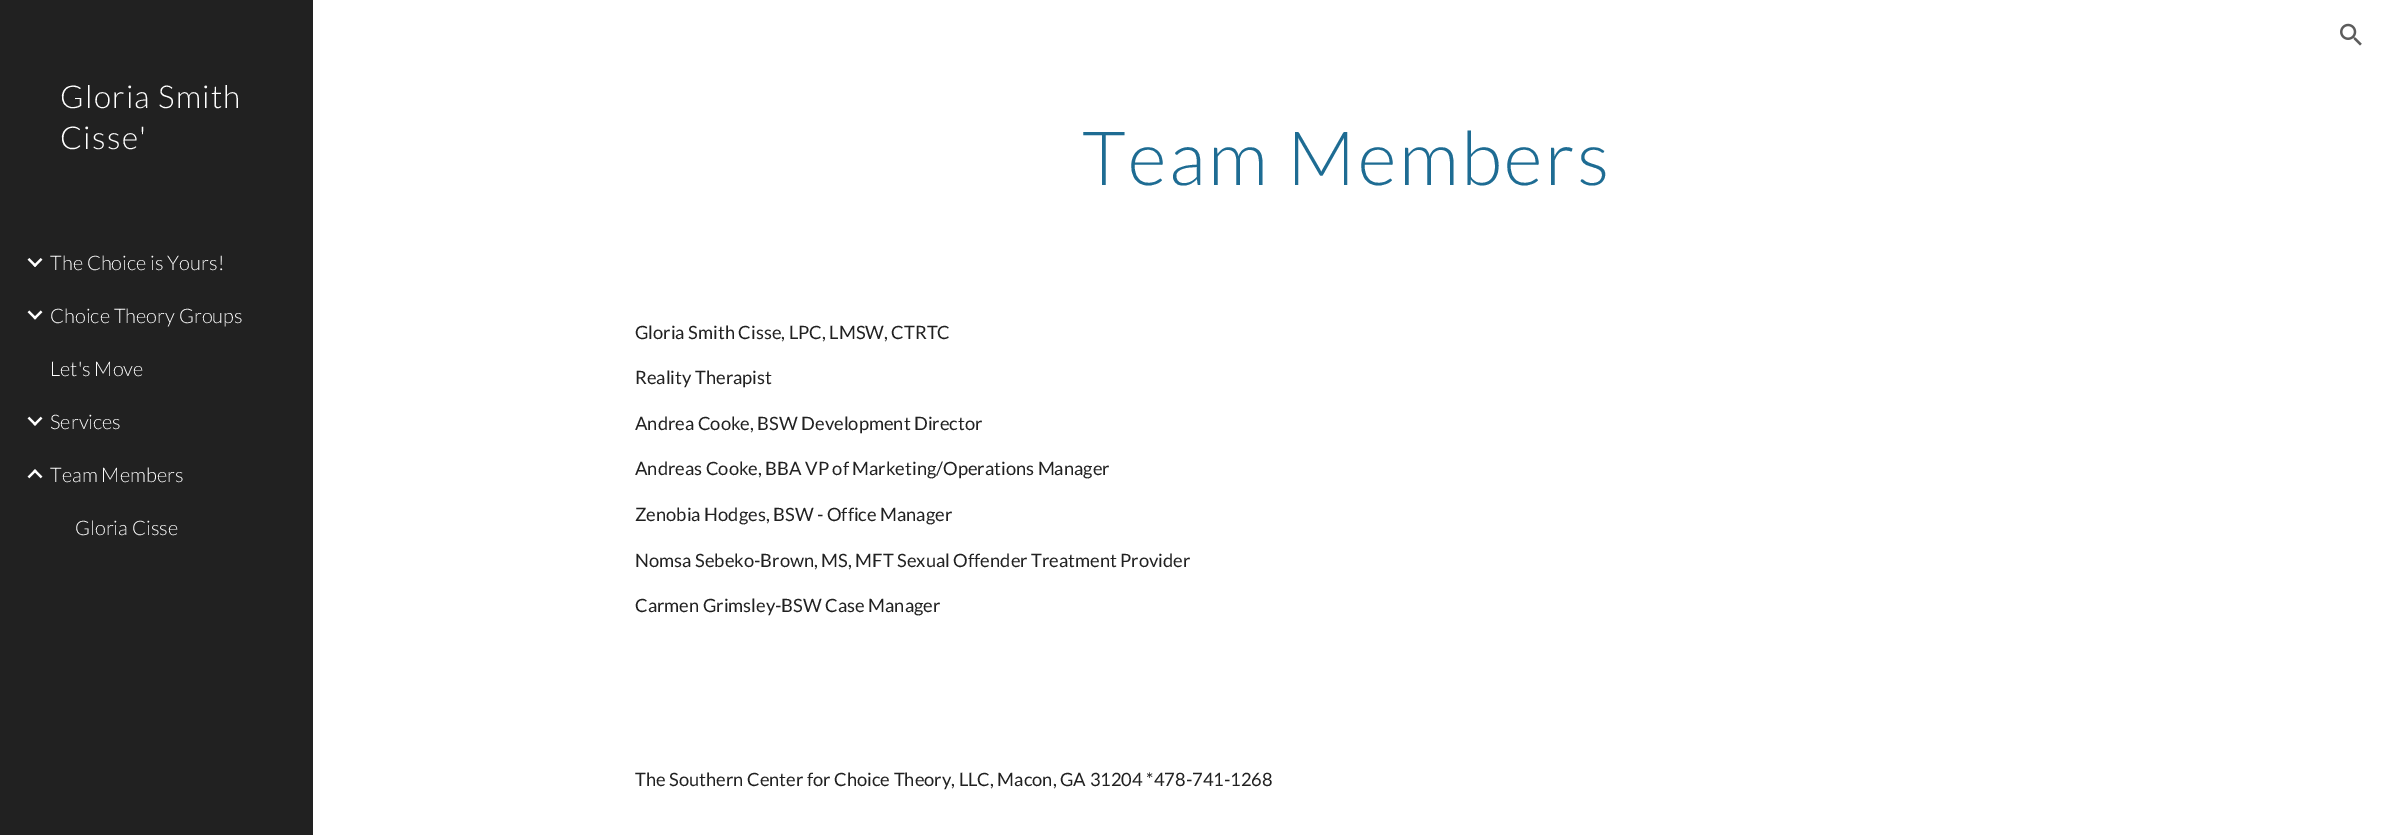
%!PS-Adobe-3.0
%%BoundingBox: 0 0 2381 835
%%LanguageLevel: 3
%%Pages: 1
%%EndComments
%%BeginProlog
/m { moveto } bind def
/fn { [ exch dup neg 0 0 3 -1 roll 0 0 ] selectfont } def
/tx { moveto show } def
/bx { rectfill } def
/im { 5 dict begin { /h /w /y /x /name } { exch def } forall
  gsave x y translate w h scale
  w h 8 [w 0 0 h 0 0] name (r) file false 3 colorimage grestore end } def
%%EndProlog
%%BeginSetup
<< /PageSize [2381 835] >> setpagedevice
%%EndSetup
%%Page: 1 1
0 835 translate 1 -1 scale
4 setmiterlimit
1 setgray
0 0 2381 835 bx
(image0.raw) 2340 23 22 23 im
0.129 setgray
0 0 313 835 bx
/Lato-Light 31.5 fn
1 setgray
60 108 m 1.25 0 (Gloria Smith) ashow
60 149 m 1.25 0 (Cisse') ashow
(image1.raw) 27 258 16 9 im
/Lato-Light 20 fn
(The Choice is Yours!) 50 270 tx
(image2.raw) 27 310 16 10 im
(Choice Theory Groups) 50 323 tx
(Let's Move) 50 376 tx
(image3.raw) 27 416 16 10 im
(Services) 50 429 tx
(image4.raw) 27 469 16 10 im
(Team Members) 50 482 tx
(Gloria Cisse) 75 535 tx
/Lato-Light 75 fn
0.118 0.424 0.576 setrgbcolor
1082 185 m 2.5 0 (Team Members) ashow
/Lato-Regular 18.35 fn
0.129 setgray
(Gloria Smith Cisse, LPC, LMSW, CTRTC) 635 339 tx
(Reality Therapist) 635 384 tx
(Andrea Cooke, BSW Development Director) 635 430 tx
(Andreas Cooke, BBA VP of Marketing/Operations Manager) 635 475 tx
(Zenobia Hodges, BSW - Office Manager) 635 521 tx
(Nomsa Sebeko-Brown, MS, MFT Sexual Offender Treatment Provider) 635 567 tx
(Carmen Grimsley-BSW Case Manager) 635 612 tx
(The Southern Center for Choice Theory, LLC, Macon, GA 31204 *478-741-1268) 635 786 tx
showpage
%%EOF
